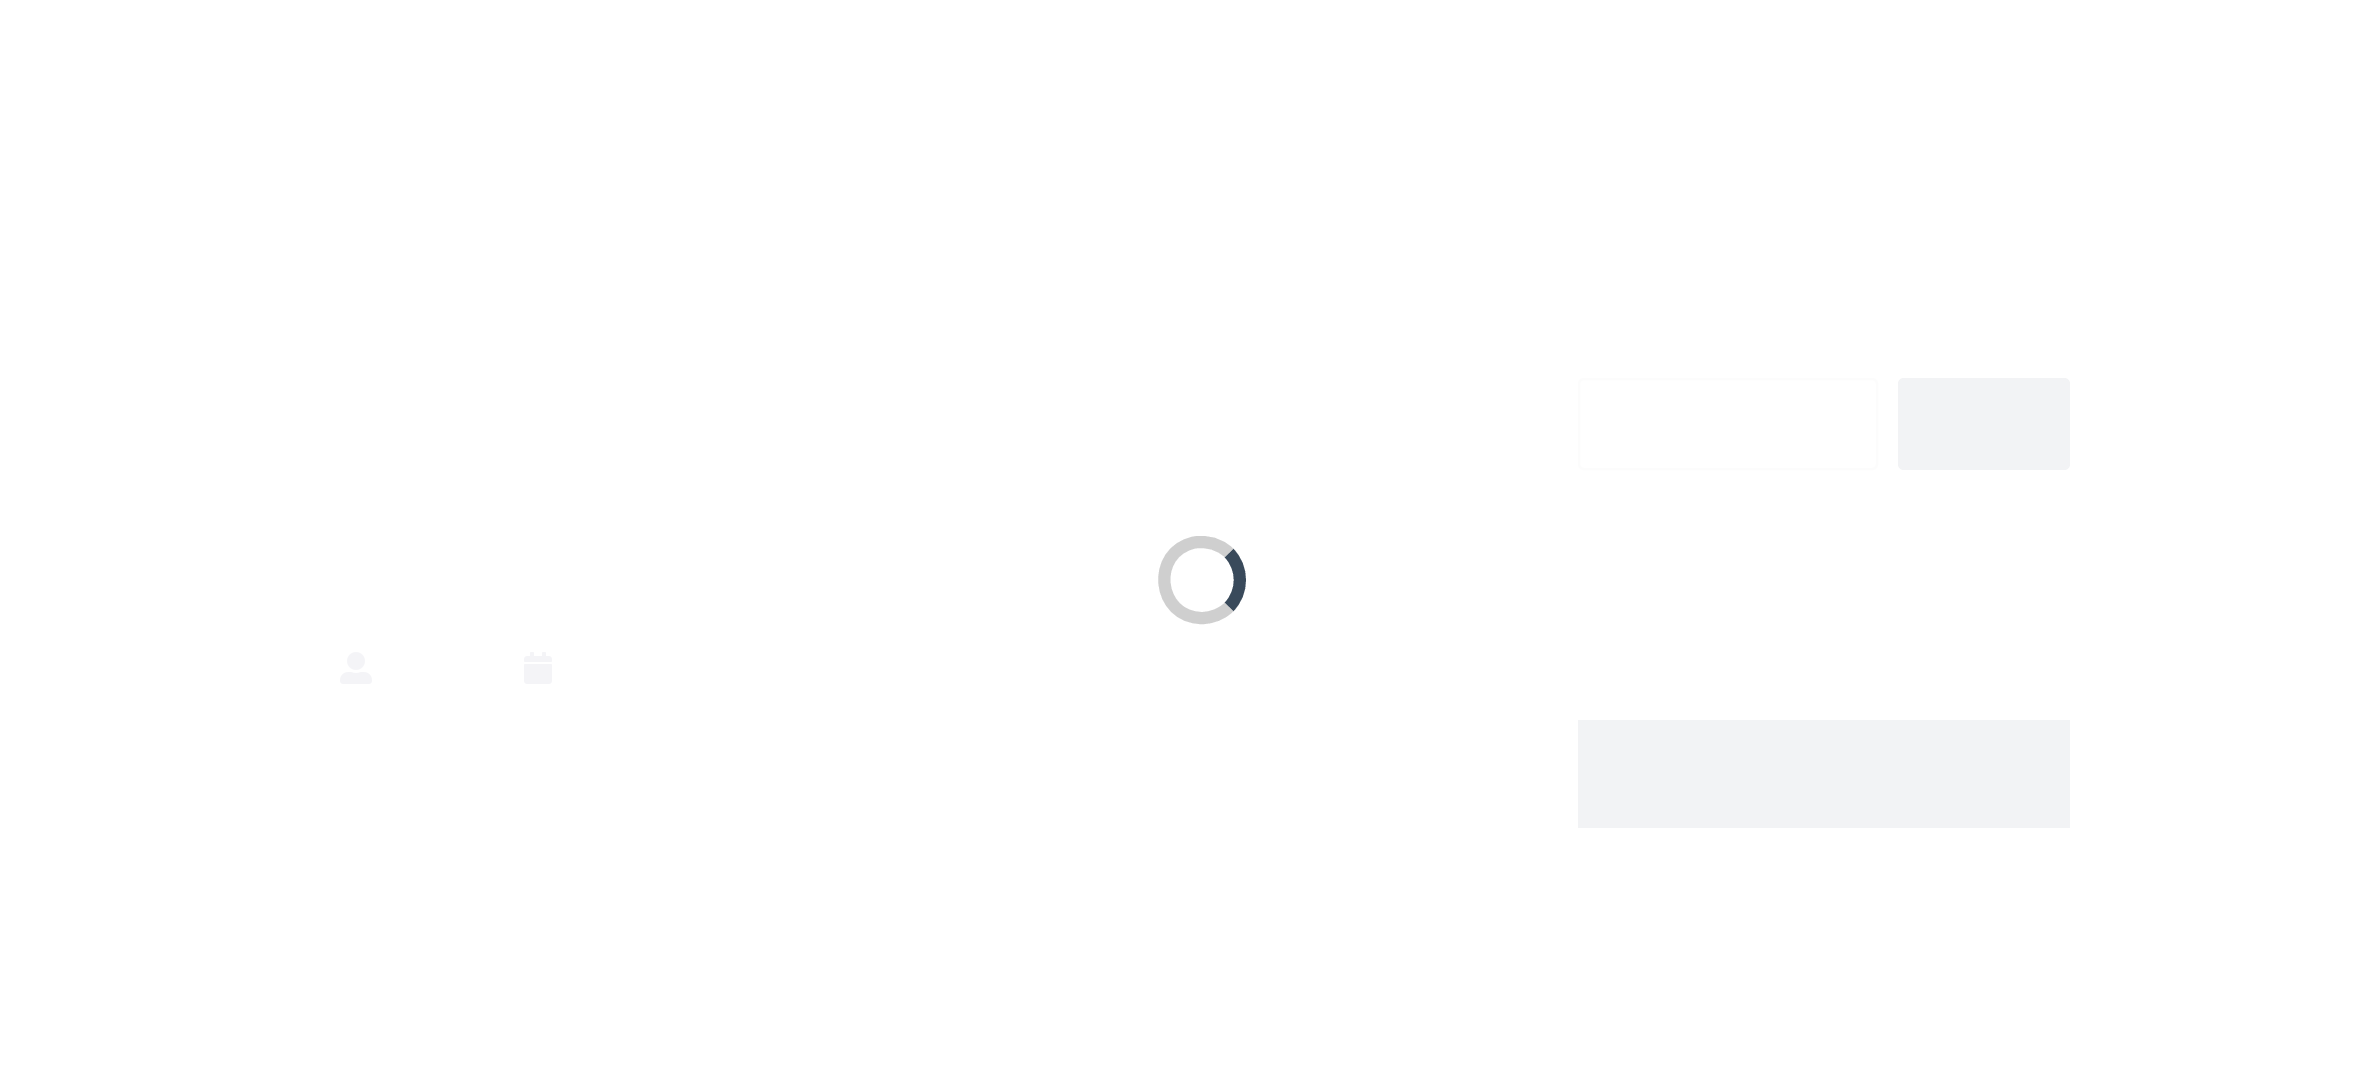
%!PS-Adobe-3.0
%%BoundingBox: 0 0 2369 1070
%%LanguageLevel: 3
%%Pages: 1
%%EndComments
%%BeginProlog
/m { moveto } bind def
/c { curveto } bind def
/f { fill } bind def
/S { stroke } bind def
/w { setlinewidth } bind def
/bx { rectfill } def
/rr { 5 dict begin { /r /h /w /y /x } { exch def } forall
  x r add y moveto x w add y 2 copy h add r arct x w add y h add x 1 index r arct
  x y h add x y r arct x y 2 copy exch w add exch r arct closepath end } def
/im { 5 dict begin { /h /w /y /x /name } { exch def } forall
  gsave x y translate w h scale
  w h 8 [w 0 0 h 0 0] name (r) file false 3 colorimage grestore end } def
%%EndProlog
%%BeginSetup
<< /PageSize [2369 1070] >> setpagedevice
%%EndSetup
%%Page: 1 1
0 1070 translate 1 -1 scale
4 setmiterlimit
1 setgray
0 0 2369 1070 bx
(image0.raw) 340 652 32 32 im
(image1.raw) 524 652 28 32 im
0.988 setgray
2 w
1579 379 298 90 5 rr S
0.949 0.953 0.961 setrgbcolor
1898 378 172 92 6 rr f
1578 720 492 108 bx
0.224 0.29 0.357 setrgbcolor
12 w
1229 553 m 1243.5 568 1243.5 592 1229 607 c S
0.812 setgray
1229 607 m 1222 614 1212 618 1202 618 c 1156.5 618 1150 551.5 1194.5 542.5 c 1207 540.5 1220 544 1229 553 c S
showpage
%%EOF
